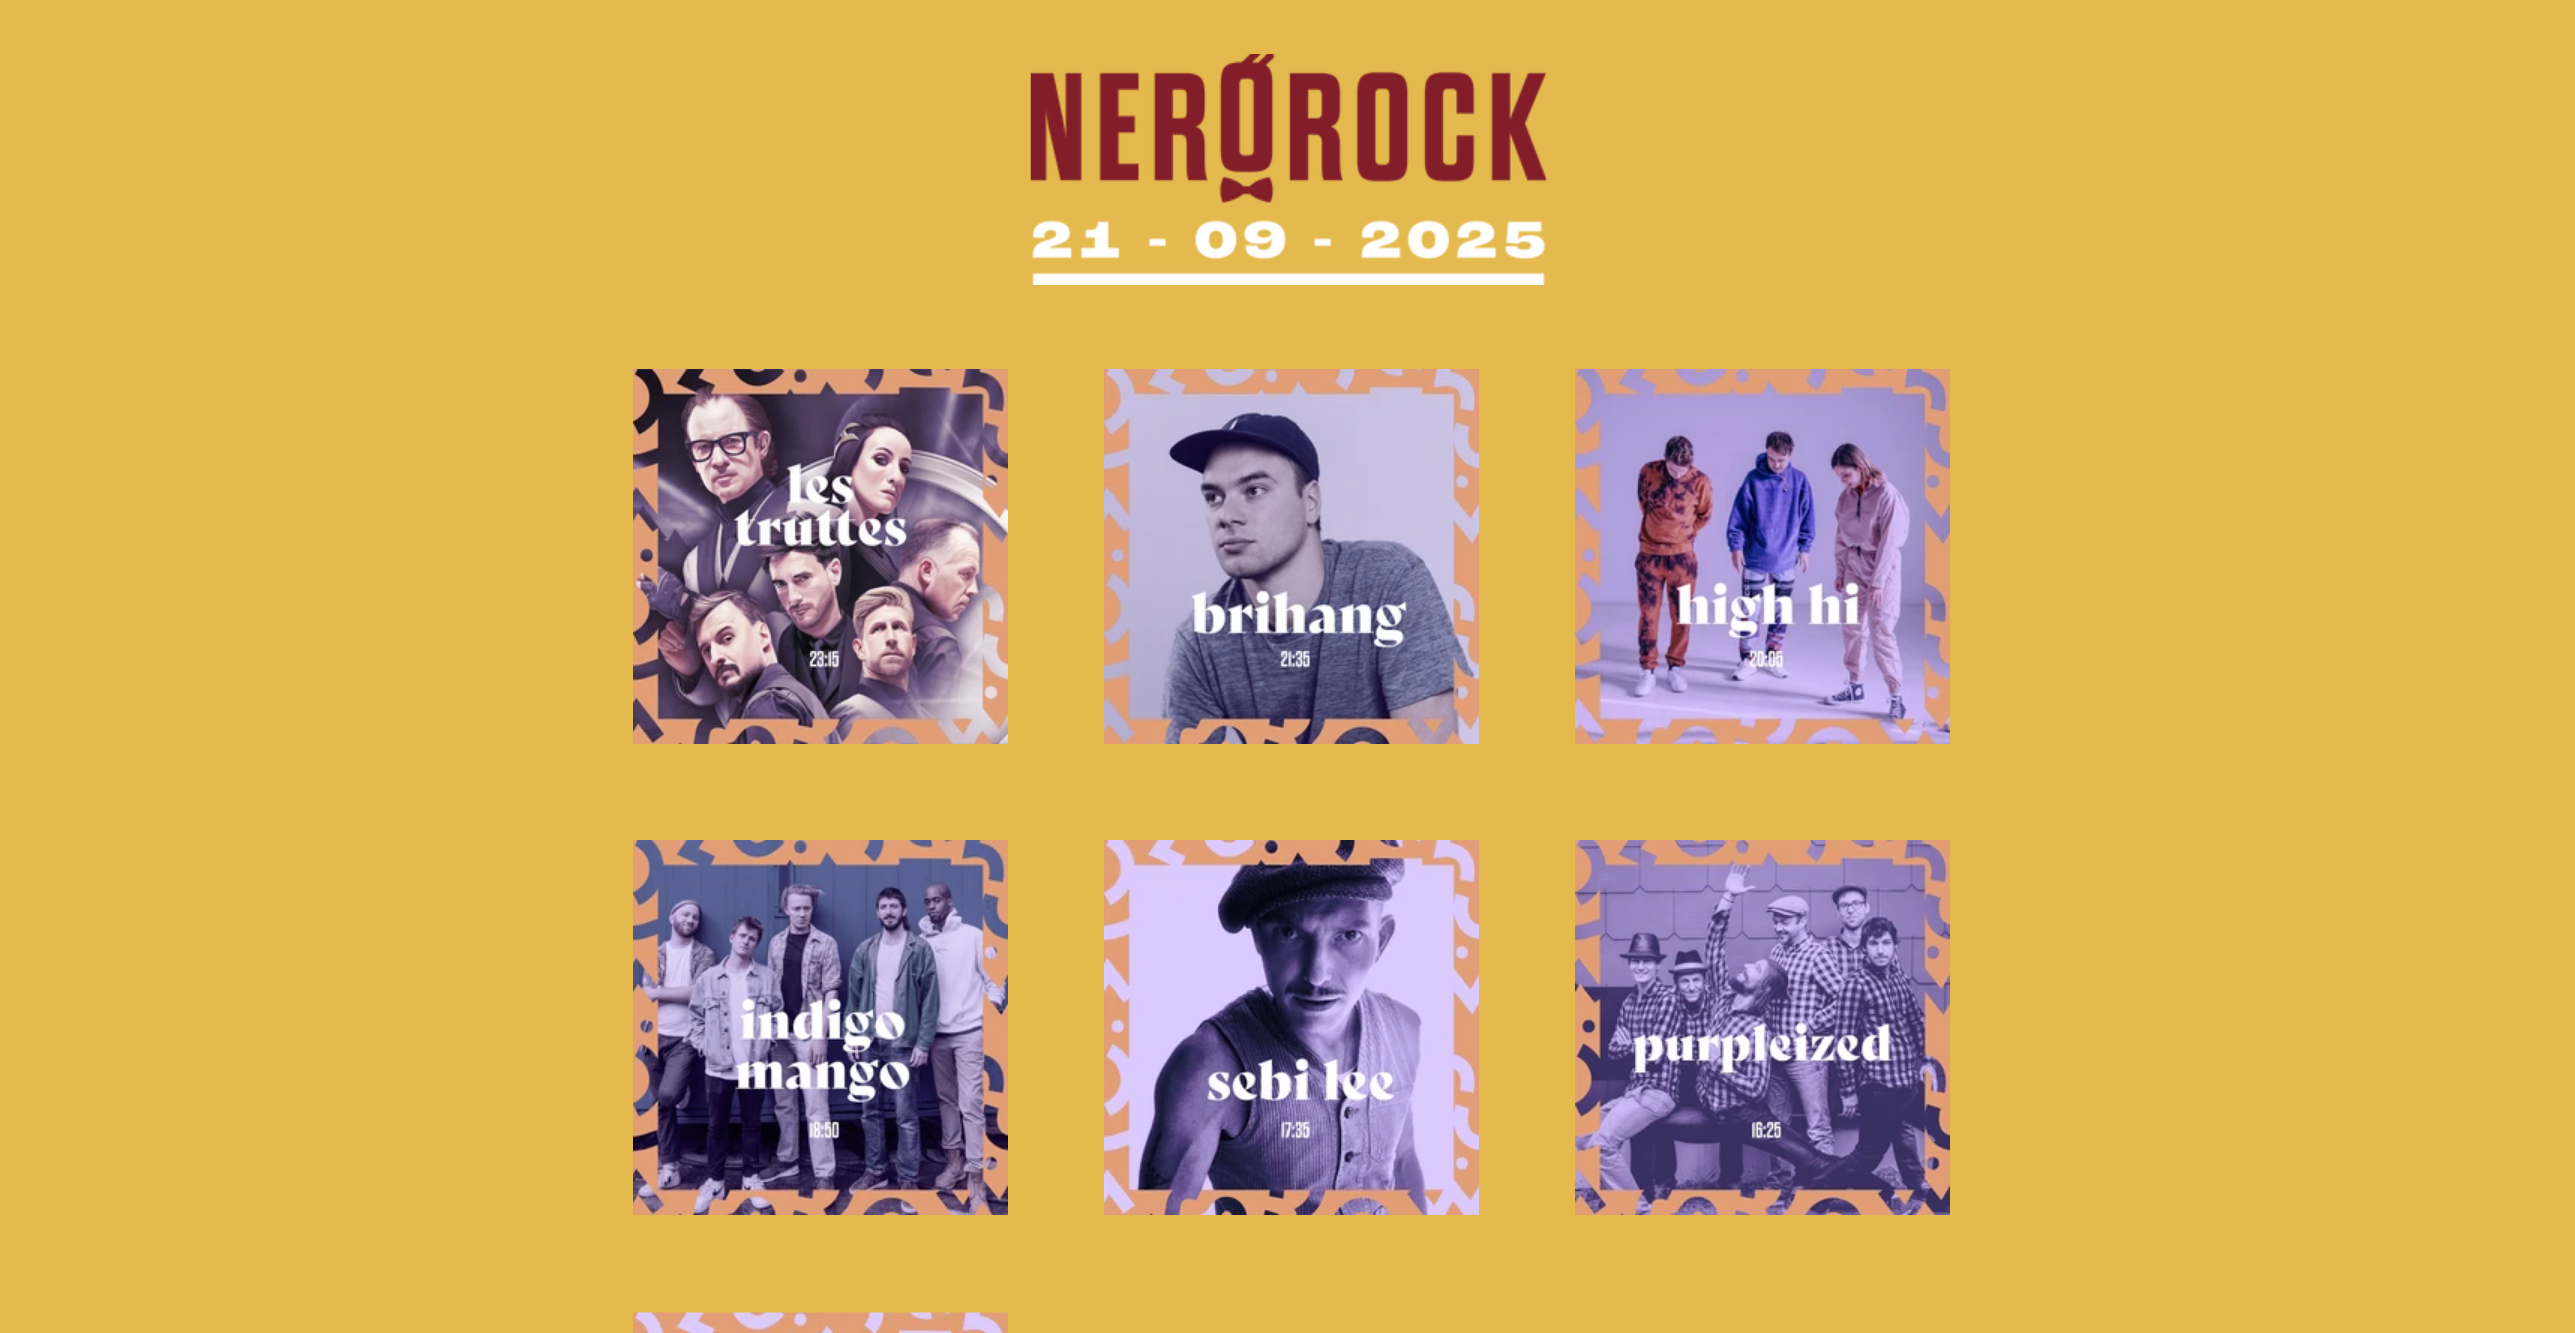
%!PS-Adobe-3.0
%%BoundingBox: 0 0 2575 1333
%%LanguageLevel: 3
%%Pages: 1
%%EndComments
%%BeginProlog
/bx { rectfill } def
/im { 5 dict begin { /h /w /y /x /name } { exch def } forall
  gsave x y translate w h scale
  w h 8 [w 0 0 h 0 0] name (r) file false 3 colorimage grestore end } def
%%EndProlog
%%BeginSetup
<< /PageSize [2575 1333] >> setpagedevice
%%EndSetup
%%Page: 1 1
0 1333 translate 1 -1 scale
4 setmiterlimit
0.894 0.729 0.306 setrgbcolor
0 0 2575 1333 bx
(image0.raw) 1030 54 517 231 im
(image1.raw) 633 369 375 375 im
(image2.raw) 1104 369 375 375 im
(image3.raw) 1575 369 375 375 im
(image4.raw) 633 840 375 375 im
(image5.raw) 1104 840 375 375 im
(image6.raw) 1575 840 375 375 im
(image7.raw) 633 1312 375 21 im
showpage
%%EOF
